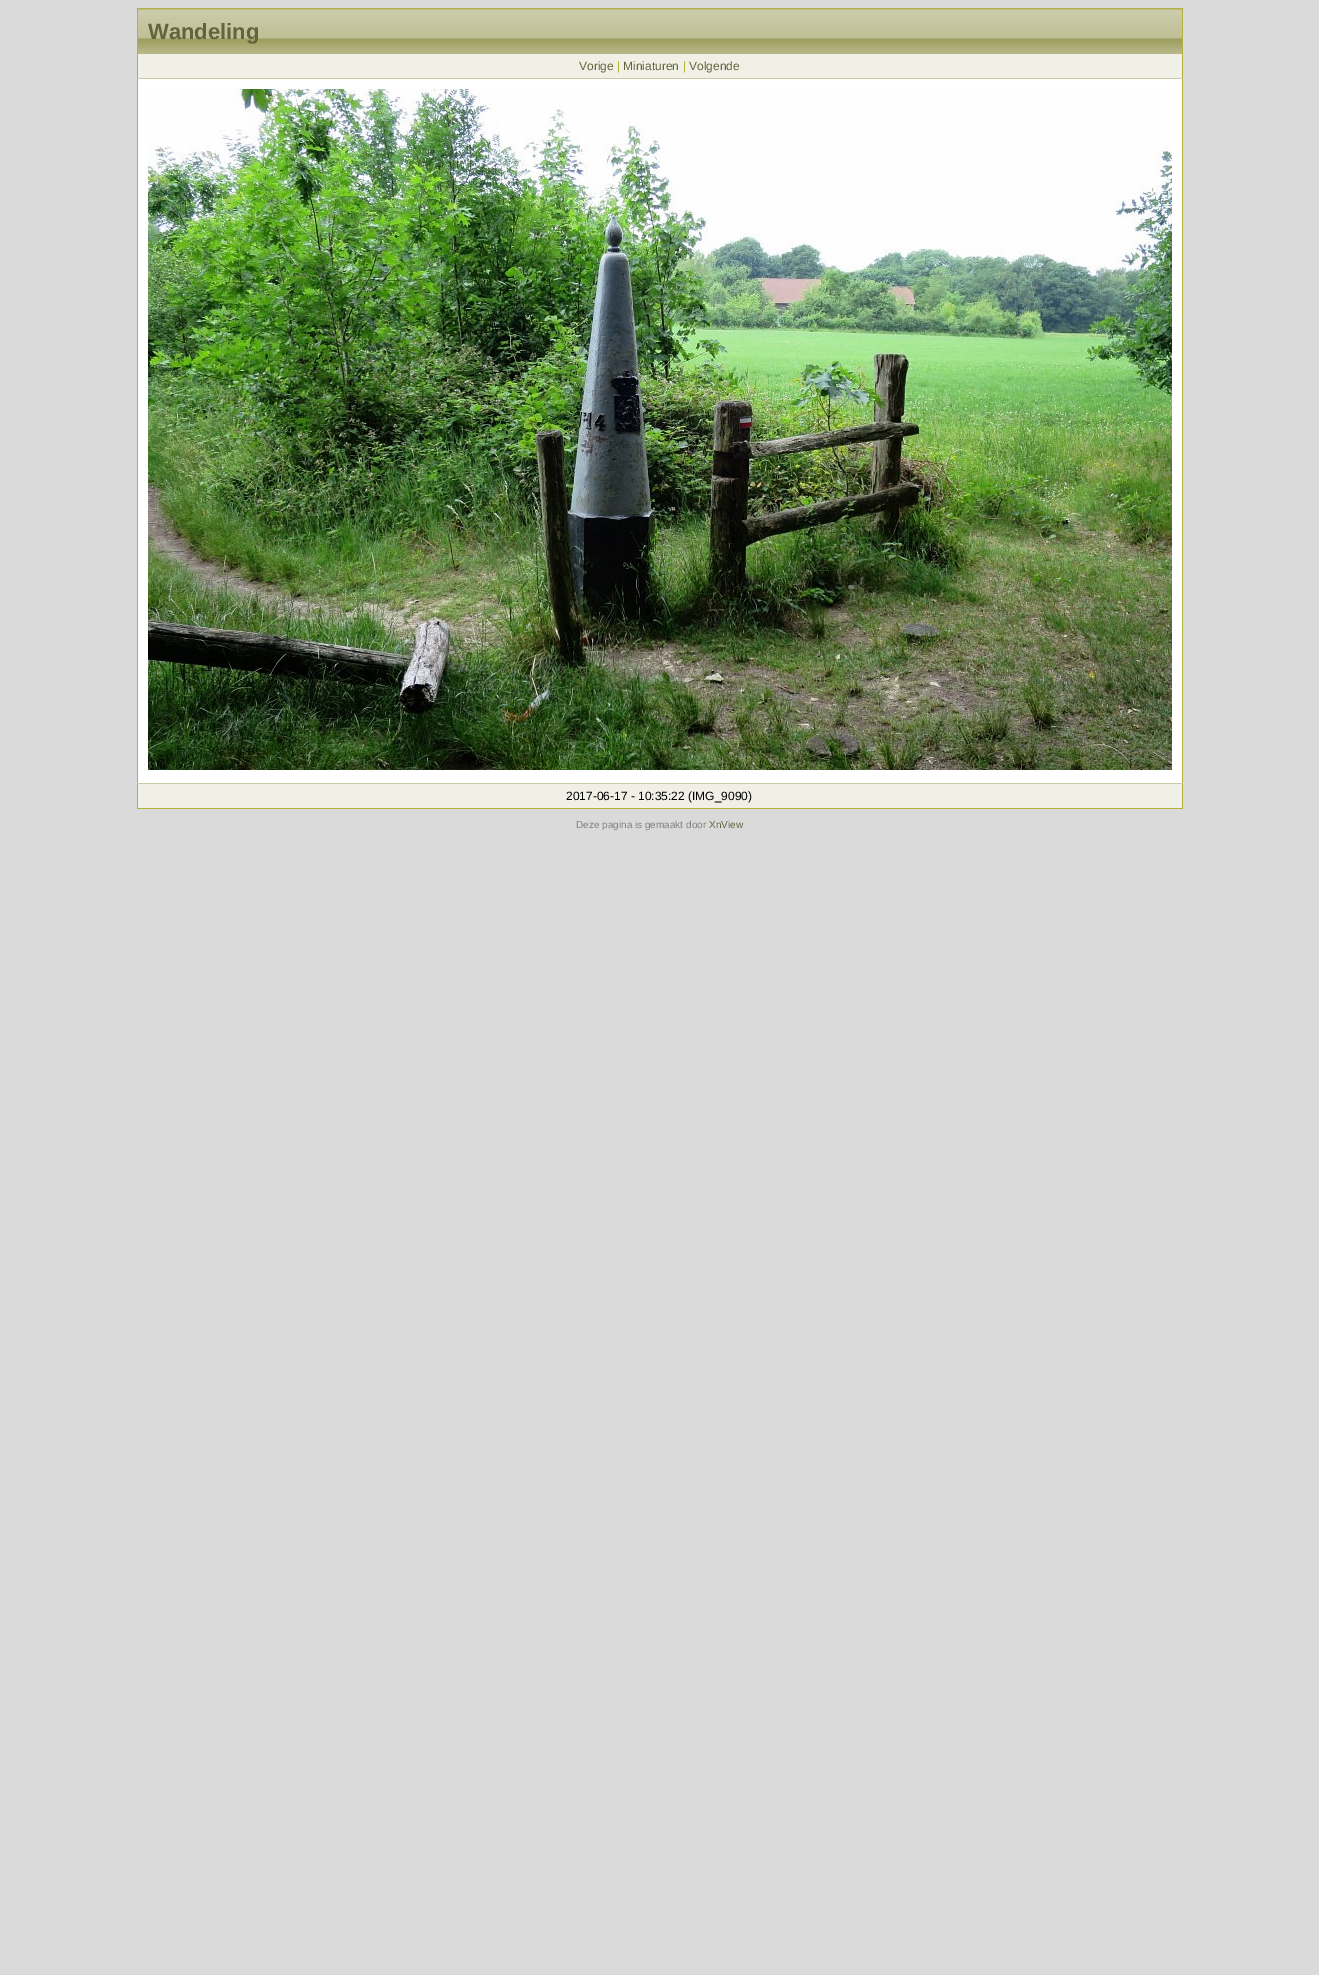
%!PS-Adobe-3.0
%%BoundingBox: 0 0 1319 1975
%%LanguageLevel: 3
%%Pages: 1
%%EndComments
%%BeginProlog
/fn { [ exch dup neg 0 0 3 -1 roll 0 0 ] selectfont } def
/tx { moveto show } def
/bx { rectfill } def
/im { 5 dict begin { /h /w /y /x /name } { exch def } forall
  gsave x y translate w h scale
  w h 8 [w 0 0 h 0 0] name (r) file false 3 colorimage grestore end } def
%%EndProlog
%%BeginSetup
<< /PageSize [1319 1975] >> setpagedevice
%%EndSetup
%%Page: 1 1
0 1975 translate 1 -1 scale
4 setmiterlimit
0.855 setgray
0 0 1319 1975 bx
1 setgray
138 79 1044 704 bx
0.694 0.694 0.235 setrgbcolor
137 8 1046 1 bx
1182 8 1 801 bx
137 808 1046 1 bx
137 8 1 801 bx
(image0.raw) 138 9 1044 45 im
/LiberationSans-Bold 22 fn
0.392 0.392 0.235 setrgbcolor
(Wandeling) 148 39 tx
0.945 0.941 0.906 setrgbcolor
138 54 1044 24 bx
0.796 0.796 0.663 setrgbcolor
137 78 1046 1 bx
/LiberationSans-Regular 12 fn
0.392 0.392 0.235 setrgbcolor
(Vorige) 579 70 tx
0.694 0.694 0.235 setrgbcolor
(|) 617 70 tx
0.392 0.392 0.235 setrgbcolor
(Miniaturen) 623 70 tx
0.694 0.694 0.235 setrgbcolor
(|) 683 70 tx
0.392 0.392 0.235 setrgbcolor
(Volgende) 689 70 tx
(image1.raw) 148 89 1024 681 im
0.945 0.941 0.906 setrgbcolor
138 784 1044 24 bx
0.796 0.796 0.663 setrgbcolor
137 783 1046 1 bx
0 setgray
(2017-06-17 - 10:35:22 \(IMG_9090\)) 566 800 tx
/LiberationSans-Regular 10 fn
0.502 setgray
(Deze pagina is gemaakt door) 576 828 tx
0.392 0.392 0.235 setrgbcolor
(XnView) 709 828 tx
showpage
%%EOF
